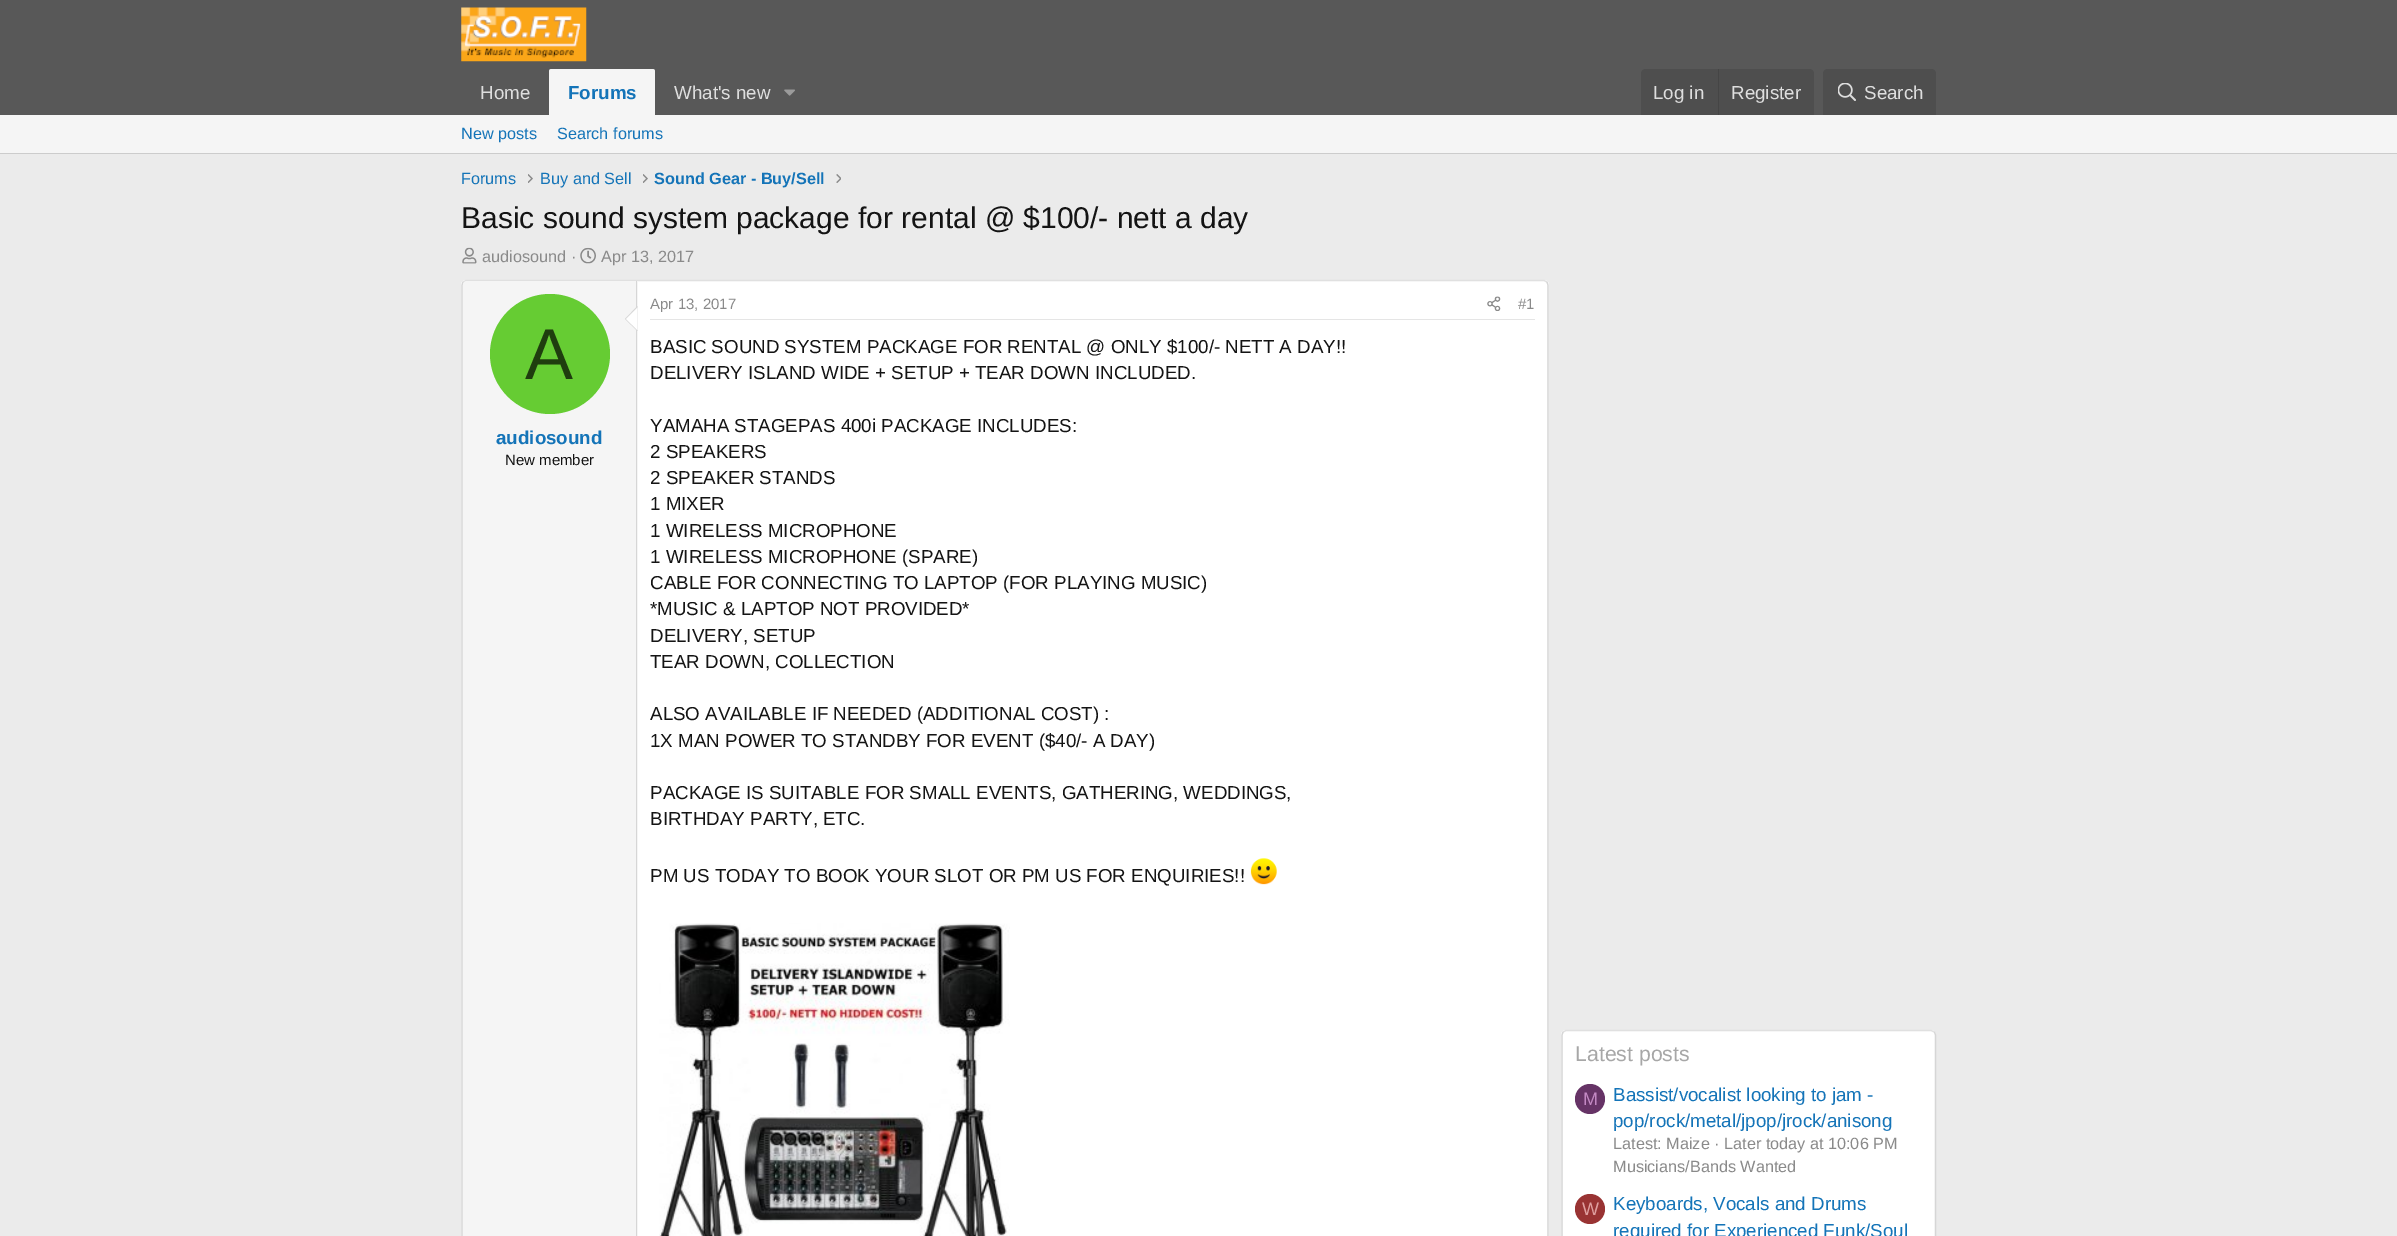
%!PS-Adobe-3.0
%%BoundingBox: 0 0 2397 1236
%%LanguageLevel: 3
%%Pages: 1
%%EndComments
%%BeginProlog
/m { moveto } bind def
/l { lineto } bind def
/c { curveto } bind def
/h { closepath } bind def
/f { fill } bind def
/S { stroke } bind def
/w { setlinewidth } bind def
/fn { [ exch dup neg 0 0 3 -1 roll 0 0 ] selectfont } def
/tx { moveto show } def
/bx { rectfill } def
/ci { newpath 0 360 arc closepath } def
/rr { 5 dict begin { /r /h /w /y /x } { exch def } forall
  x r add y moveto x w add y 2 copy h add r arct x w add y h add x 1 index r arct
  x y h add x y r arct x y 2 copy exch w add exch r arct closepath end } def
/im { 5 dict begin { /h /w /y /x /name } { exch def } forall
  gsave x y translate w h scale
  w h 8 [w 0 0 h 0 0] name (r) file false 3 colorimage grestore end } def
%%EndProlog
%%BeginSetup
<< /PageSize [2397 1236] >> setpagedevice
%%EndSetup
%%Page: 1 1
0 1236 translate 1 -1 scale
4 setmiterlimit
0.922 setgray
0 0 2397 1236 bx
0.345 setgray
0 0 2397 115 bx
(image0.raw) 461 7 126 55 im
/LiberationSans-Regular 18.75 fn
0.871 setgray
(Home) 480 99 tx
0.961 setgray
551.5 69 m 652.5 69 l 654 69 655 70 655 71.5 c 655 115 l 549 115 l 549 71.5 l 549 70 550 69 551.5 69 c h f
/LiberationSans-Bold 18.75 fn
0.078 0.455 0.722 setrgbcolor
(Forums) 568 99 tx
/LiberationSans-Regular 18.75 fn
0.871 setgray
(What's new) 674 99 tx
(image1.raw) 784 89 11 7 im
0.306 setgray
1646 69 m 1809 69 l 1812 69 1814 71 1814 74 c 1814 115 l 1641 115 l 1641 74 l 1641 71 1643 69 1646 69 c h f
0.871 setgray
(Log in) 1653 99 tx
0.271 setgray
1718 69 1 46 bx
0.871 setgray
(Register) 1731 99 tx
0.306 setgray
1828 69 m 1931 69 l 1934 69 1936 71 1936 74 c 1936 115 l 1823 115 l 1823 74 l 1823 71 1825 69 1828 69 c h f
(image2.raw) 1838 83 18 18 im
0.871 setgray
(Search) 1864 99 tx
0.961 setgray
0 115 2397 38 bx
0.8 setgray
0 153 2397 1 bx
/LiberationSans-Regular 16.25 fn
0.078 0.455 0.722 setrgbcolor
(New posts) 461 139 tx
(Search forums) 557 139 tx
(Forums) 461 184 tx
(image3.raw) 528 174 5 9 im
(Buy and Sell) 540 184 tx
(image3.raw) 643 174 5 9 im
/LiberationSans-Bold 16.25 fn
(Sound Gear - Buy/Sell) 654 184 tx
(image4.raw) 836 174 5 9 im
/LiberationSans-Regular 30 fn
0.078 setgray
(Basic sound system package for rental @ $100/- nett a day) 461 228 tx
(image5.raw) 462 247 15 17 im
/LiberationSans-Regular 16.25 fn
0.541 setgray
(audiosound ·) 482 262 tx
(image6.raw) 580 247 16 17 im
(Apr 13, 2017) 601 262 tx
1 setgray
461 280 1088 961 5 rr f
0.878 setgray
1.2 w
463 282 m 466 280.5 l 1544 280.5 l 1547 282 l S
0.839 setgray
1547 282 m 1548 285 l 1548 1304 l 1547 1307 l S
463 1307 m 462 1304 l 462 285 l 463 282 l S
0.961 setgray
467 281 m 638 281 l 638 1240 l 467 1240 l 465 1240 463 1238 463 1236 c 463 285 l 463 283 465 281 467 281 c h f
0.839 setgray
636 281 1 955 bx
637.5 306 m 637.5 331 l 625 319 l h f
1 setgray
637.5 307.5 m 637.5 330 l 626 319 l h f
0.4 0.8 0.2 setrgbcolor
550 354 60 ci f
/LiberationSans-Regular 72 fn
0.122 0.239 0.059 setrgbcolor
(A) 525 379 tx
/LiberationSans-Bold 18.75 fn
0.078 0.455 0.722 setrgbcolor
(audiosound) 496 444 tx
/LiberationSans-Regular 15 fn
0.078 setgray
(New member) 505 465 tx
0.898 setgray
650 319 885 1 bx
0.541 setgray
(Apr 13, 2017) 650 309 tx
(image7.raw) 1487 296 14 15 im
(#1) 1518 309 tx
/LiberationSans-Regular 18.75 fn
0.078 setgray
(BASIC SOUND SYSTEM PACKAGE FOR RENTAL @ ONLY $100/- NETT A DAY!!) 650 353 tx
(DELIVERY ISLAND WIDE + SETUP + TEAR DOWN INCLUDED.) 650 379 tx
(YAMAHA STAGEPAS 400i PACKAGE INCLUDES:) 650 432 tx
(2 SPEAKERS) 650 458 tx
(2 SPEAKER STANDS) 650 484 tx
(1 MIXER) 650 510 tx
(1 WIRELESS MICROPHONE) 650 537 tx
(1 WIRELESS MICROPHONE \(SPARE\)) 650 563 tx
(CABLE FOR CONNECTING TO LAPTOP \(FOR PLAYING MUSIC\)) 650 589 tx
(*MUSIC & LAPTOP NOT PROVIDED*) 650 615 tx
(DELIVERY, SETUP) 650 642 tx
(TEAR DOWN, COLLECTION) 650 668 tx
(ALSO AVAILABLE IF NEEDED \(ADDITIONAL COST\) :) 650 720 tx
(1X MAN POWER TO STANDBY FOR EVENT \($40/- A DAY\)) 650 747 tx
(PACKAGE IS SUITABLE FOR SMALL EVENTS, GATHERING, WEDDINGS,) 650 799 tx
(BIRTHDAY PARTY, ETC.) 650 825 tx
(PM US TODAY TO BOOK YOUR SLOT OR PM US FOR ENQUIRIES!!) 650 882 tx
(image8.raw) 1250 858 27 27 im
(image9.raw) 659 923 351 313 im
1 setgray
1561 1030 375 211 5 rr f
0.878 setgray
1563 1032 m 1566 1030.5 l 1931 1030.5 l 1934.5 1032 l S
0.839 setgray
1934.5 1032 m 1935.5 1035 l 1935.5 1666 l 1934.5 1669.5 l S
1563 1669.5 m 1562 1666 l 1562 1035 l 1563 1032 l S
/LiberationSans-Regular 21.25 fn
0.655 setgray
(Latest posts) 1575 1061 tx
0.4 0.2 0.4 setrgbcolor
1590 1099 15 ci f
/LiberationSans-Regular 18 fn
0.765 0.533 0.765 setrgbcolor
(M) 1583 1105 tx
/LiberationSans-Regular 18.75 fn
0.078 0.455 0.722 setrgbcolor
(Bassist/vocalist looking to jam -) 1613 1101 tx
(pop/rock/metal/jpop/jrock/anisong) 1613 1127 tx
/LiberationSans-Regular 16.25 fn
0.541 setgray
(Latest: Maize · Later today at 10:06 PM) 1613 1149 tx
(Musicians/Bands Wanted) 1613 1172 tx
0.6 0.2 0.2 setrgbcolor
1590 1209 15 ci f
/LiberationSans-Regular 18 fn
0.875 0.624 0.624 setrgbcolor
(W) 1582 1215 tx
/LiberationSans-Regular 18.75 fn
0.078 0.455 0.722 setrgbcolor
(Keyboards, Vocals and Drums) 1613 1210 tx
(required for Experienced Funk/Soul) 1613 1237 tx
showpage
%%EOF
